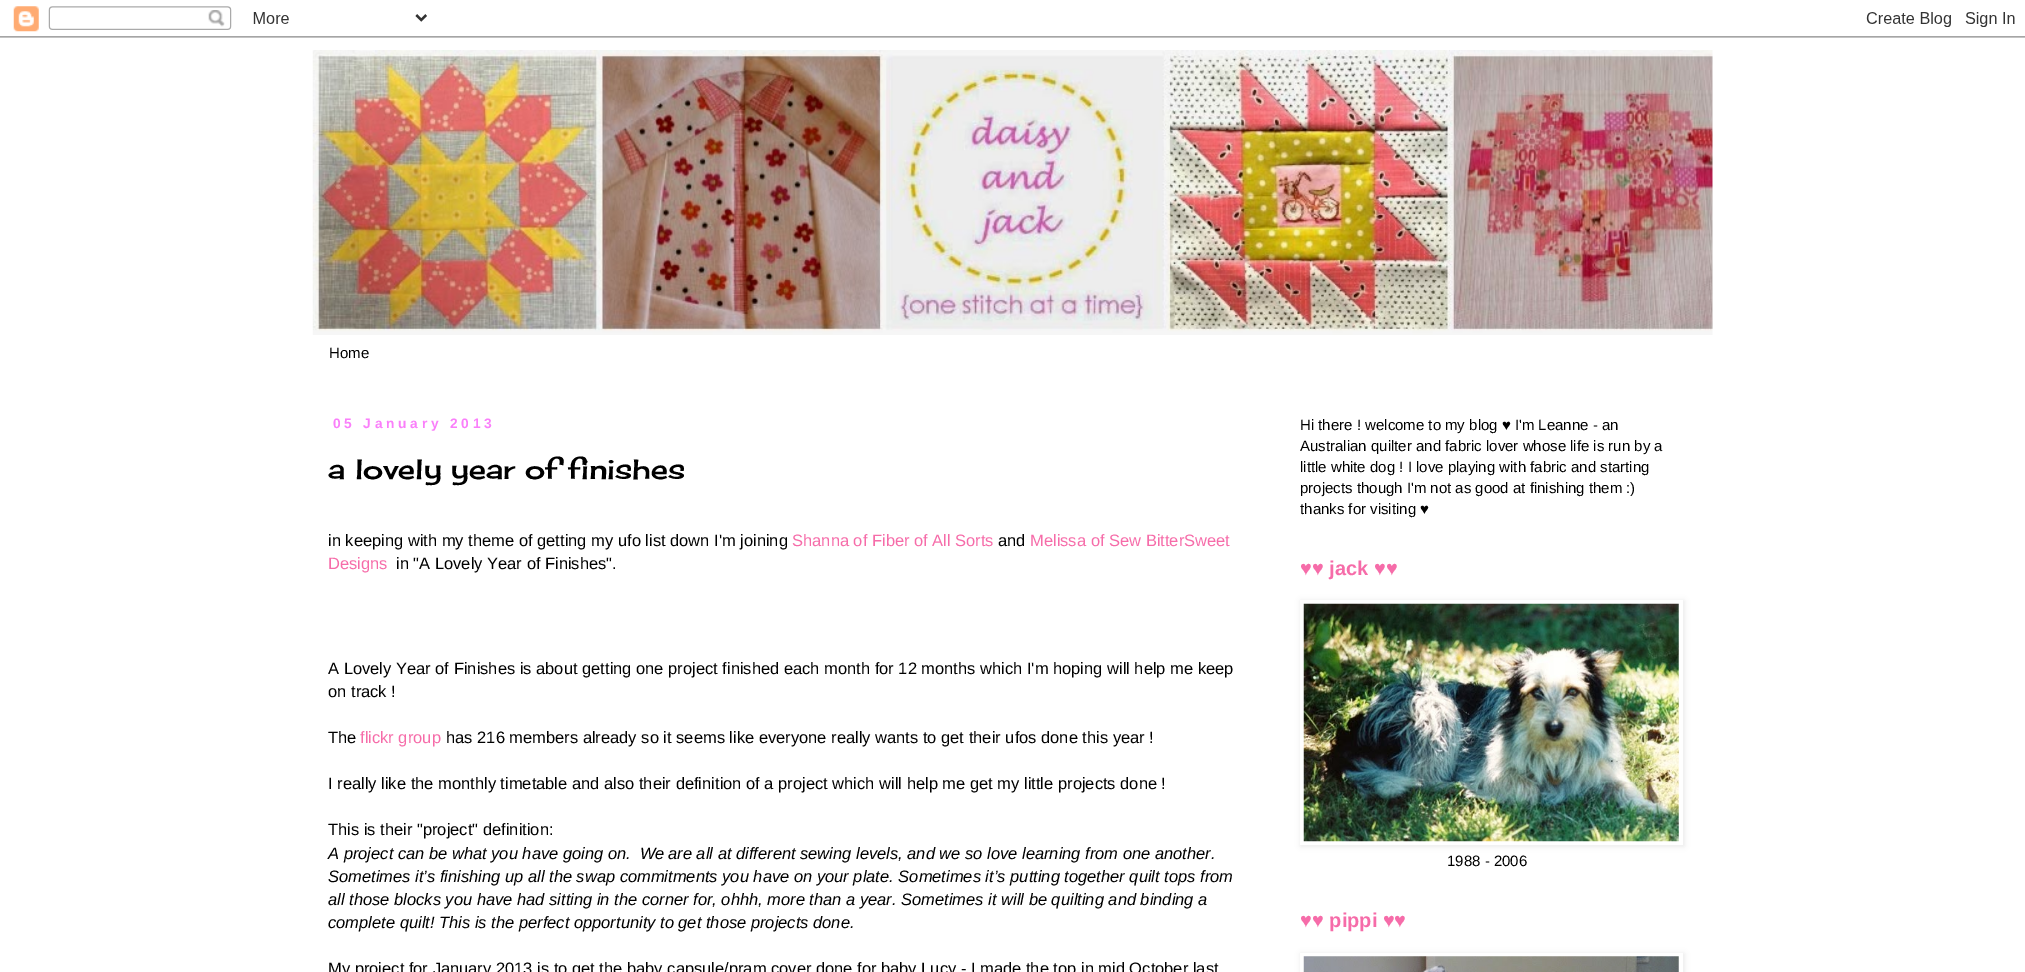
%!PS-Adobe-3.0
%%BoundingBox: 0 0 2025 972
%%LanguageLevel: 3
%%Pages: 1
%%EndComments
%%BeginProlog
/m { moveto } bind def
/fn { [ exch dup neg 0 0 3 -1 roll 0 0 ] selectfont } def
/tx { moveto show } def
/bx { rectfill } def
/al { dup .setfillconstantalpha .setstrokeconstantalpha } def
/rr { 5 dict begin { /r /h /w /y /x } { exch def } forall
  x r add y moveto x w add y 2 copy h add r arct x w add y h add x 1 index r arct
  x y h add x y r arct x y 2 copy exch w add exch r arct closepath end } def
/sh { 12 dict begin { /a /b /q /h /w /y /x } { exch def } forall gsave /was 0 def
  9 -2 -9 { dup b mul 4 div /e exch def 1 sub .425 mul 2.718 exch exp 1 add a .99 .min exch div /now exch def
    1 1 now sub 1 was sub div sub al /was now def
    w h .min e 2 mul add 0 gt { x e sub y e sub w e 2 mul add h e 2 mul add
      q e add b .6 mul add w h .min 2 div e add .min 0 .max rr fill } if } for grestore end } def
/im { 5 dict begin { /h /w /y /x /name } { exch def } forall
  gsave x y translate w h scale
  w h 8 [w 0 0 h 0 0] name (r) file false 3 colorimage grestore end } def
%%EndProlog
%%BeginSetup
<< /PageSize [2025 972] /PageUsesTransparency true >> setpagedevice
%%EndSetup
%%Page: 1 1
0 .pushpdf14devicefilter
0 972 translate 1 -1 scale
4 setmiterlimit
1 setgray
0 0 2025 972 bx
(image0.raw) 0 6 2025 32 im
(image1.raw) 312 50 1401 285 im
/LiberationSans-Regular 15 fn
0 setgray
(Home) 329 358 tx
/LiberationSans-Bold 13.75 fn
0.98 0.498 0.98 setrgbcolor
333 428 m 3.75 0 (05 January 2013) ashow
/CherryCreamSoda-Regular 27.5 fn
0 setgray
(a lovely year of finishes) 328 479 tx
/LiberationSans-Regular 16.5 fn
(in keeping with my theme of getting my ufo list down I'm joining) 328 546 tx
0.965 0.424 0.663 setrgbcolor
(Shanna of Fiber of All Sorts) 792 546 tx
0 setgray
(and) 998 546 tx
0.965 0.424 0.663 setrgbcolor
(Melissa of Sew BitterSweet) 1030 546 tx
(Designs) 328 569 tx
0 setgray
(in "A Lovely Year of Finishes".) 396 569 tx
(A Lovely Year of Finishes is about getting one project finished each month for 12 months which I'm hoping will help me keep) 328 674 tx
(on track !) 328 697 tx
(The) 328 743 tx
0.965 0.424 0.663 setrgbcolor
(flickr group) 360 743 tx
0 setgray
(has 216 members already so it seems like everyone really wants to get their ufos done this year !) 446 743 tx
(I really like the monthly timetable and also their definition of a project which will help me get my little projects done !) 328 789 tx
(This is their "project" definition:) 328 835 tx
/LiberationSans-Italic 16.5 fn
(A project can be what you have going on.  We) 328 859 tx
(are all at different sewing levels, and we so love learning from one another.) 668 859 tx
(Sometimes it’s finishing up all the swap commitments you have on your plate. Sometimes it’s putting together quilt tops from) 328 882 tx
(all those blocks you have had sitting in the corner for, ohhh, more than a year. Sometimes it will be quilting and binding a) 328 905 tx
(complete quilt! This is the perfect opportunity to get those projects done.) 328 928 tx
/LiberationSans-Regular 16.5 fn
(My project for January 2013 is to get the baby capsule/pram cover done for baby Lucy - I made the top in mid October last) 328 974 tx
/LiberationSans-Regular 15 fn
(Hi there ! welcome to my blog ♥ I'm Leanne - an) 1300 430 tx
(Australian quilter and fabric lover whose life is run by a) 1300 451 tx
(little white dog ! I love playing with fabric and starting) 1300 472 tx
(projects though I'm not as good at finishing them :\)) 1300 493 tx
(thanks for visiting ♥) 1300 514 tx
/LiberationSans-Bold 20 fn
0.965 0.424 0.663 setrgbcolor
(♥♥ jack ♥♥) 1300 575 tx
0 setgray
1301 601 383 245 0 3 0.1 sh
1 setgray
1300 600 383 245 bx
(image2.raw) 1303 603 376 239 im
/LiberationSans-Regular 15 fn
0 setgray
(1988 - 2006) 1447 866 tx
/LiberationSans-Bold 20 fn
0.965 0.424 0.663 setrgbcolor
(♥♥ pippi ♥♥) 1300 927 tx
0 setgray
1301 954 383 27 0 3 0.1 sh
1 setgray
1300 953 383 19 bx
(image3.raw) 1303 956 376 16 im
.poppdf14devicefilter showpage
%%EOF
